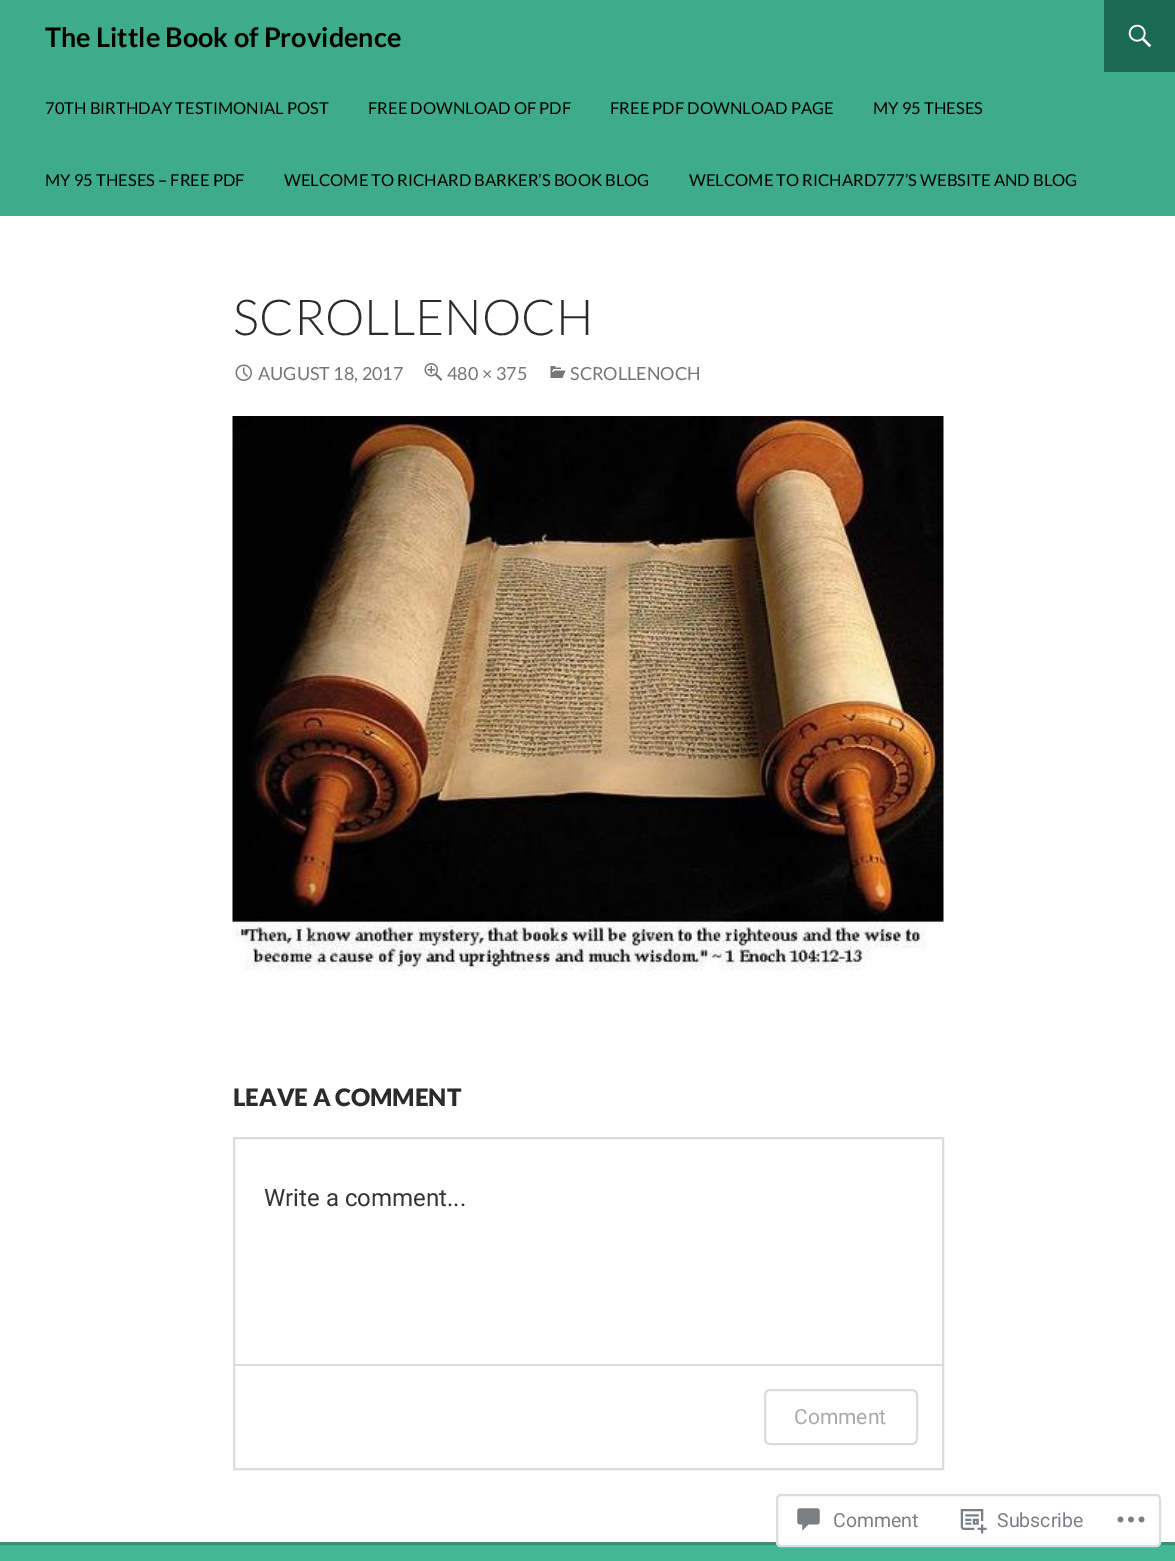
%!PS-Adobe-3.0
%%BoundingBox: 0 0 1175 1561
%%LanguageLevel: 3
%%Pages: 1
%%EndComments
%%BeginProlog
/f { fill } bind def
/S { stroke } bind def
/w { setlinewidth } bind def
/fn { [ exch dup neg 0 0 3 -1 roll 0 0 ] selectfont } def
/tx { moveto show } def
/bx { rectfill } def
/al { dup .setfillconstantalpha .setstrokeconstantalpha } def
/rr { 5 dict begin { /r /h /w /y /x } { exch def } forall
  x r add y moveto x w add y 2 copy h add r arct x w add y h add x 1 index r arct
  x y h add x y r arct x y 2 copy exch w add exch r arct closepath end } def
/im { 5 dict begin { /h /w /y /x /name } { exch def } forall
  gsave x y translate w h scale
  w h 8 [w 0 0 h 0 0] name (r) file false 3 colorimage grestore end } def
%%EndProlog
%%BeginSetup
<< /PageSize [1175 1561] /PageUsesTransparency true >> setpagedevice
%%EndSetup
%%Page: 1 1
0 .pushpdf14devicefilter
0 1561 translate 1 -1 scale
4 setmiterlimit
1 setgray
0 0 1175 1561 bx
0.243 0.675 0.537 setrgbcolor
0 0 1175 216 bx
/Lato-Bold 27 fn
0 setgray
(The Little Book of Providence) 45 47 tx
0.11 0.416 0.322 setrgbcolor
1104 0 71 72 bx
(image0.raw) 1128 24 24 24 im
/Lato-Regular 16.5 fn
0 setgray
(70TH BIRTHDAY TESTIMONIAL POST) 45 114 tx
(FREE DOWNLOAD OF PDF) 368 114 tx
(FREE PDF DOWNLOAD PAGE) 610 114 tx
(MY 95 THESES) 873 114 tx
(MY 95 THESES – FREE PDF) 45 186 tx
(WELCOME TO RICHARD BARKER’S BOOK BLOG) 284 186 tx
(WELCOME TO RICHARD777’S WEBSITE AND BLOG) 689 186 tx
/Lato-Light 49.5 fn
0.169 setgray
(SCROLLENOCH) 233 335 tx
(image1.raw) 235 364 17 17 im
/Lato-Regular 18 fn
0.463 setgray
(AUGUST 18, 2017) 258 380 tx
(image2.raw) 424 363 19 18 im
(480 × 375) 447 380 tx
(image3.raw) 550 366 16 12 im
(SCROLLENOCH) 570 380 tx
(image4.raw) 232 416 712 555 im
/Lato-Black 24 fn
0.169 setgray
(LEAVE A COMMENT) 233 1106 tx
0.863 0.863 0.871 setrgbcolor
2 w
234 1138 709 331 rectstroke
/Roboto-Regular 24 fn
0.2 setgray
(Write a comment...) 264 1206 tx
0.863 0.863 0.871 setrgbcolor
234 1364 708 2 bx
765 1390 152 54 5 rr S
/Roboto-Regular 21 fn
0.655 0.667 0.678 setrgbcolor
(Comment) 794 1424 tx
0.204 0.573 0.455 setrgbcolor
0 1542 1175 3 bx
0.259 0.718 0.573 setrgbcolor
0 1545 1175 16 bx
0.98 al
1 setgray
776 1494 385 53 5 rr f
0.863 0.863 0.871 setrgbcolor
777 1495 383 51 4 rr S
1 al
(image5.raw) 797 1508 23 23 im
/Roboto-Regular 19.5 fn
0.482 0.498 0.522 setrgbcolor
(Comment) 833 1527 tx
(image6.raw) 960 1509 27 25 im
(Subscribe) 997 1527 tx
(image7.raw) 1117 1516 28 7 im
.poppdf14devicefilter showpage
%%EOF
